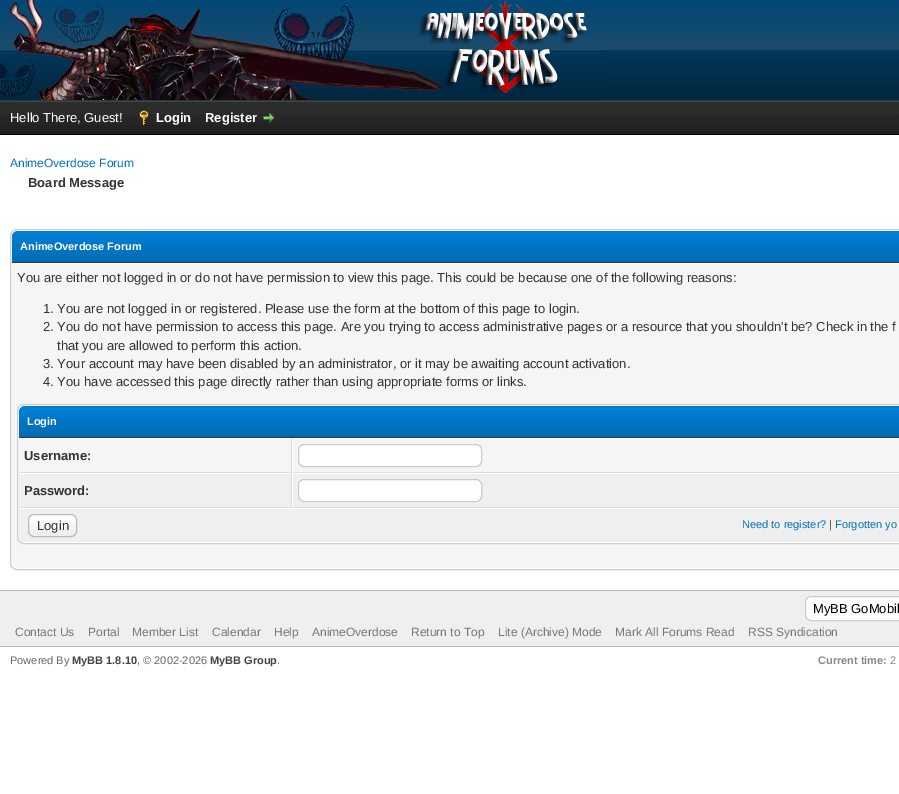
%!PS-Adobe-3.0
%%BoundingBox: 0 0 899 794
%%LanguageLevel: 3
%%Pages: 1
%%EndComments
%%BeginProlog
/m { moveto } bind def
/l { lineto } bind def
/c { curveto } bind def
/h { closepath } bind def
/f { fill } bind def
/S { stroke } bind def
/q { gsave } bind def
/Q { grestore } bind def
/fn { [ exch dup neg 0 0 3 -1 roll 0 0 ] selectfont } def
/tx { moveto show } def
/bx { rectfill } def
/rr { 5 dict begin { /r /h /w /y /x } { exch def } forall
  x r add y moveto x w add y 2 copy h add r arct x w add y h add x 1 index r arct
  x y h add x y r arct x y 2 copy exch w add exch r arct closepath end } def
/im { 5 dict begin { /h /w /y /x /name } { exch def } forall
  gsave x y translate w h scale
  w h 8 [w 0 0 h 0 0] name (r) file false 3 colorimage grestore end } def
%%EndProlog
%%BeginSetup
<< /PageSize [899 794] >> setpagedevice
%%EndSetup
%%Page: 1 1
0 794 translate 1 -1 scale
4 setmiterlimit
1 setgray
0 0 899 794 bx
(image0.raw) 604 0 295 100 im
0.149 0.235 0.188 setrgbcolor
0 100 899 1 bx
(image1.raw) 0 0 604 100 im
(image2.raw) 0 102 899 32 im
0.267 setgray
0 101 899 1 bx
0 setgray
0 134 899 1 bx
/LiberationSans-Regular 13 fn
1 setgray
(Hello There, Guest!) 10 122 tx
(image3.raw) 139 110 10 15 im
/LiberationSans-Bold 13 fn
(Login) 156 122 tx
(Register) 205 122 tx
(image4.raw) 263 113 12 10 im
/LiberationSans-Regular 12 fn
0 0.447 0.737 setrgbcolor
(AnimeOverdose Forum) 10 167 tx
/LiberationSans-Bold 13 fn
0.2 setgray
(Board Message) 28 187 tx
0.8 setgray
10.5 229.5 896 340 6.5 rr S
(image5.raw) 12 231 887 31 im
0.149 0.235 0.188 setrgbcolor
12 262 887 1 bx
/LiberationSans-Bold 11 fn
1 setgray
(AnimeOverdose Forum) 20 250 tx
0.961 setgray
12 263 m 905 263 l 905 562 l 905 565.5 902.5 568 899 568 c 18 568 l 14.5 568 12 565.5 12 562 c h f
1 setgray
12 263 887 1 bx
/LiberationSans-Regular 13 fn
0.2 setgray
(You are either not logged in or do not have permission to view this page. This could be because one of the following reasons:) 17 282 tx
(1. You are not logged in or registered. Please use the form at the bottom of this page to login.) 43 313 tx
(2. You do not have permission to access this page. Are you trying to access administrative pages or a resource that you shouldn't be? Check in the f) 43 331 tx
(that you are allowed to perform this action.) 57 350 tx
(3. Your account may have been disabled by an administrator, or it may be awaiting account activation.) 43 368 tx
(4. You have accessed this page directly rather than using appropriate forms or links.) 43 386 tx
1 setgray
17.5 404.5 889 139 6.5 rr q f Q
0.8 setgray
S
(image6.raw) 19 406 880 31 im
0.149 0.235 0.188 setrgbcolor
19 437 880 1 bx
/LiberationSans-Bold 11 fn
1 setgray
(Login) 27 425 tx
0.961 setgray
19 439 272 33 bx
0.867 setgray
291 438 1 70 bx
19 472 880 1 bx
/LiberationSans-Bold 13 fn
0.2 setgray
(Username:) 24 460 tx
0.961 setgray
293 439 606 33 bx
1 setgray
292 472 1 1 bx
298.5 444.5 183 22 5.5 rr q f Q
0.8 setgray
S
0.937 setgray
19 474 272 33 bx
0.867 setgray
19 507 880 1 bx
0.2 setgray
(Password:) 24 495 tx
0.937 setgray
293 474 606 33 bx
1 setgray
292 507 1 1 bx
298.5 479.5 183 22 5.5 rr q f Q
0.8 setgray
S
0.937 setgray
19 508 m 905 508 l 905 536 l 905 539.5 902.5 542 899 542 c 25 542 l 21.5 542 19 539.5 19 536 c h f
1 setgray
19 508 880 1 bx
(image7.raw) 28 515 49 15 im
0.733 setgray
28.5 514.5 48 22 5.5 rr S
/LiberationSans-Regular 13 fn
0.2 setgray
(Login) 37 530 tx
/LiberationSans-Regular 11 fn
0 0.447 0.737 setrgbcolor
(Need to register?) 742 528 tx
0.2 setgray
(|) 829 528 tx
0 0.447 0.737 setrgbcolor
(Forgotten yo) 835 528 tx
0.937 setgray
0 591 899 55 bx
0.733 setgray
0 590 899 1 bx
0 646 899 1 bx
1 setgray
805.5 596.5 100 24 5.5 rr q f Q
0.8 setgray
S
/LiberationSans-Regular 13 fn
0 setgray
(MyBB GoMobil) 813 613 tx
/LiberationSans-Regular 12 fn
0.467 setgray
(Contact Us) 15 636 tx
(Portal) 88 636 tx
(Member List) 132 636 tx
(Calendar) 212 636 tx
(Help) 274 636 tx
(AnimeOverdose) 312 636 tx
(Return to Top) 411 636 tx
(Lite \(Archive\) Mode) 498 636 tx
(Mark All Forums Read) 615 636 tx
(RSS Syndication) 748 636 tx
/LiberationSans-Regular 11 fn
0.4 setgray
(Powered By) 10 664 tx
/LiberationSans-Bold 11 fn
0.267 setgray
(MyBB 1.8.10) 72 664 tx
/LiberationSans-Regular 11 fn
0.4 setgray
(, © 2002-2026) 137 664 tx
/LiberationSans-Bold 11 fn
0.267 setgray
(MyBB Group) 210 664 tx
/LiberationSans-Regular 11 fn
0.4 setgray
(.) 277 664 tx
/LiberationSans-Bold 11 fn
0.533 setgray
(Current time:) 818 664 tx
/LiberationSans-Regular 11 fn
(2) 890 664 tx
showpage
%%EOF
